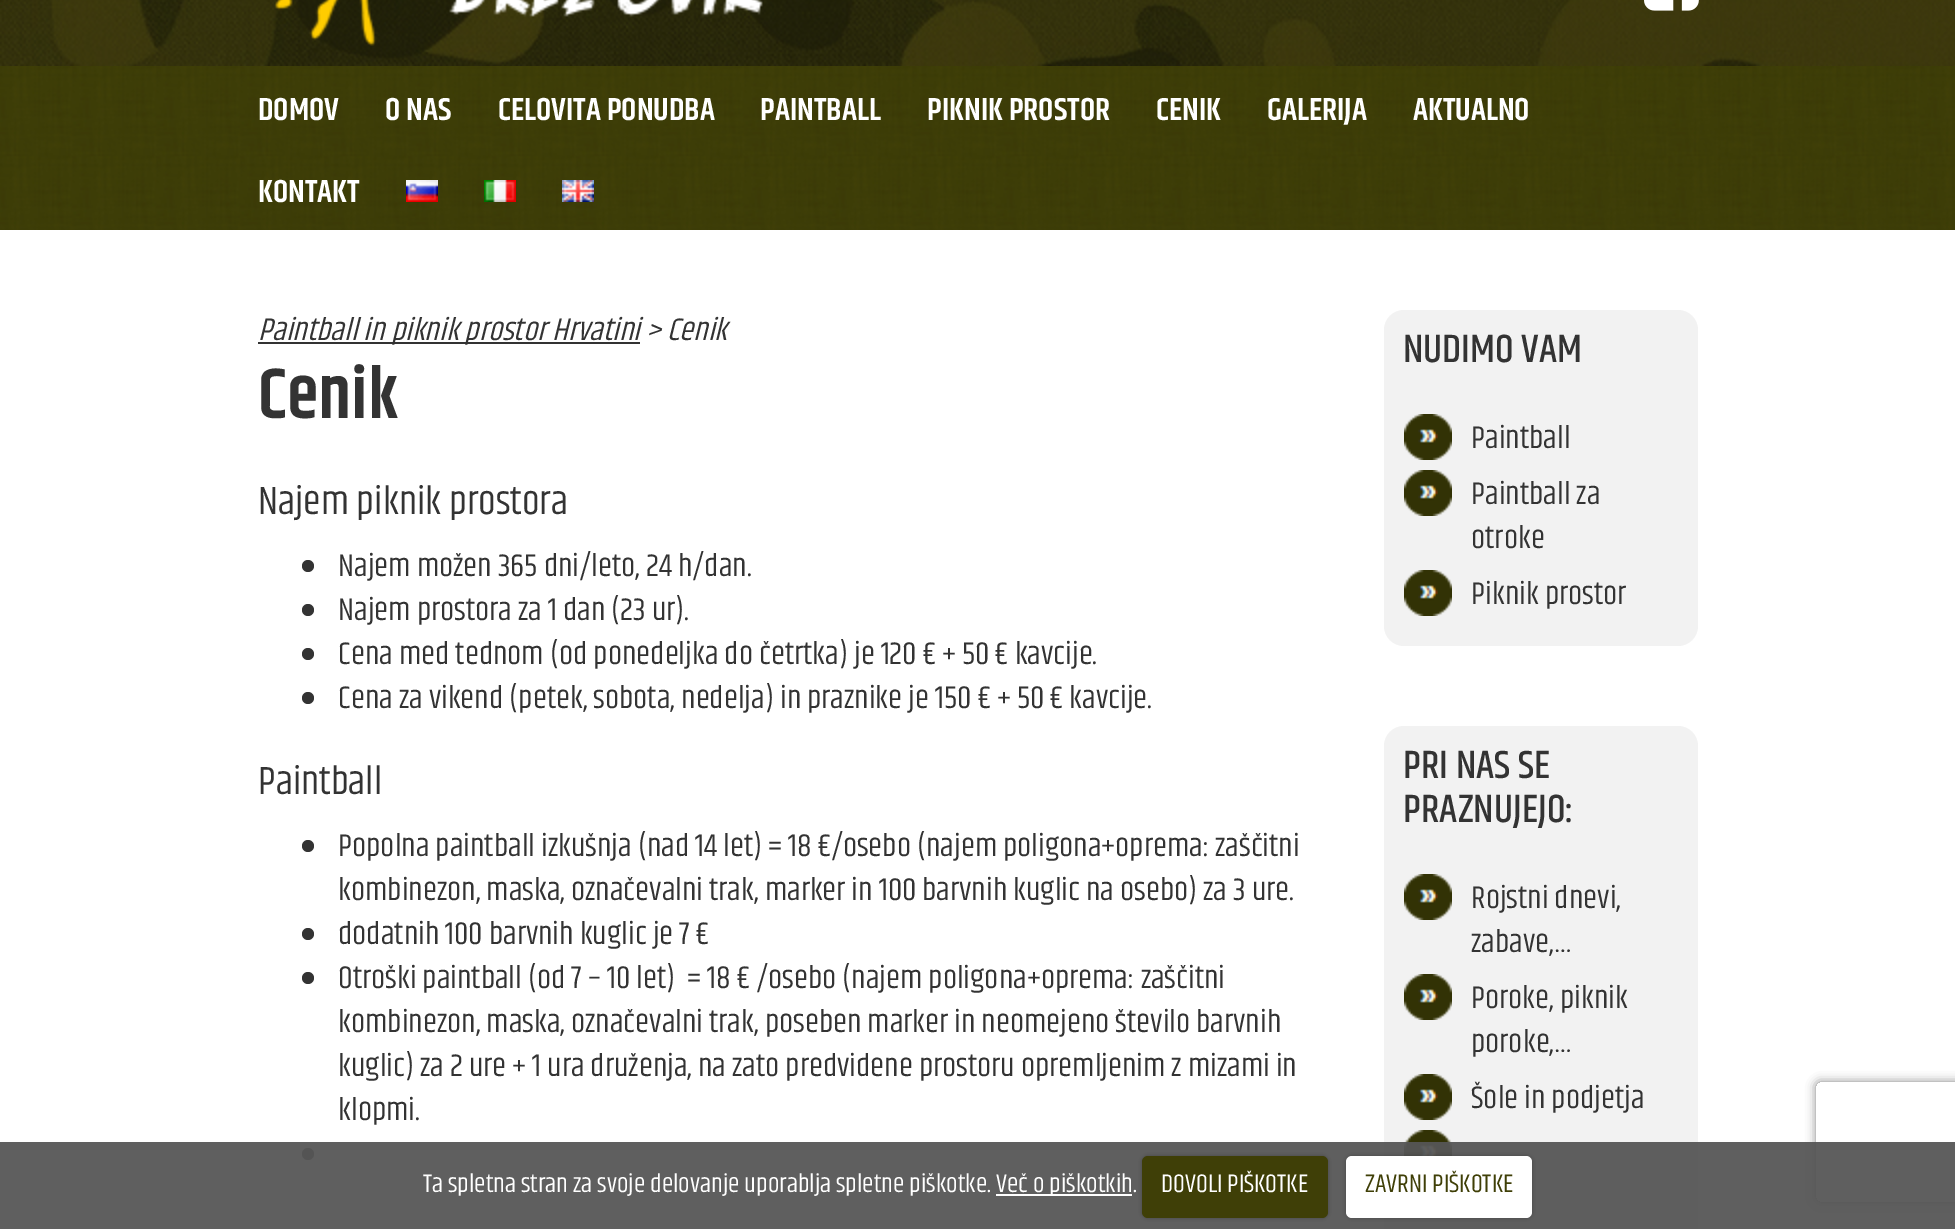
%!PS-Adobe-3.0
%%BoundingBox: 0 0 1955 1229
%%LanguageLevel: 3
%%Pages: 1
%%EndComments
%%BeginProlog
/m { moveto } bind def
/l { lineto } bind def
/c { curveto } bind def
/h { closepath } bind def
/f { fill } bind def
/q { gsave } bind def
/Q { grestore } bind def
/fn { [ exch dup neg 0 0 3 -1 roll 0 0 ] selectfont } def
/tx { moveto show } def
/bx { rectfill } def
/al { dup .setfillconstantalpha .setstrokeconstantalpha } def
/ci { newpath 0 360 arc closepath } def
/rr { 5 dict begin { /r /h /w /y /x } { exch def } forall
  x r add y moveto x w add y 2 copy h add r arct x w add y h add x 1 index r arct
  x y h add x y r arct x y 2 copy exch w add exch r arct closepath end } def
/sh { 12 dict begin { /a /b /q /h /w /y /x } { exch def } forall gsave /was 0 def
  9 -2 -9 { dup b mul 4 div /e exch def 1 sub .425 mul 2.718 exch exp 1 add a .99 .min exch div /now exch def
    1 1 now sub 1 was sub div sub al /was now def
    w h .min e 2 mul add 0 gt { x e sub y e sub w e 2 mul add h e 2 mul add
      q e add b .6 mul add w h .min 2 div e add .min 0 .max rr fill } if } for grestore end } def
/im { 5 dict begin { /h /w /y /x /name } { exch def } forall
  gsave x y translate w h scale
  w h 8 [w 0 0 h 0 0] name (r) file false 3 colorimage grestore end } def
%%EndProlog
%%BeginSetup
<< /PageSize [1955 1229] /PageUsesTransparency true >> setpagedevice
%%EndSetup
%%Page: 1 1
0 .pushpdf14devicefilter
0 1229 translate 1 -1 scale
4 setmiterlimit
1 setgray
0 0 1955 1229 bx
(image0.raw) 0 0 1955 66 im
(image1.raw) 275 0 488 46 im
(image2.raw) 1644 0 55 11 im
(image3.raw) 0 66 1955 164 im
/Khand-SemiBold 32 fn
(DOMOV) 258 120 tx
(O NAS) 385 120 tx
(CELOVITA PONUDBA) 498 120 tx
(PAINTBALL) 760 120 tx
(PIKNIK PROSTOR) 927 120 tx
(CENIK) 1156 120 tx
(GALERIJA) 1267 120 tx
(AKTUALNO) 1413 120 tx
(KONTAKT) 258 202 tx
(image4.raw) 406 180 32 22 im
(image5.raw) 484 180 32 22 im
(image6.raw) 562 180 32 22 im
0.2 setgray
258 342 382 2 bx
/Khand-Italic 32 fn
(Paintball in piknik prostor Hrvatini > Cenik) 258 340 tx
/Khand-SemiBold 72 fn
(Cenik) 258 418 tx
/Khand-Regular 40 fn
(Najem piknik prostora) 258 514 tx
308 566 6 ci f
/Khand-Regular 32 fn
(Najem možen 365 dni/leto, 24 h/dan.) 338 576 tx
308 610 6 ci f
(Najem prostora za 1 dan \(23 ur\).) 338 620 tx
308 654 6 ci f
(Cena med tednom \(od ponedeljka do četrtka\) je 120 € + 50 € kavcije.) 338 664 tx
308 698 6 ci f
(Cena za vikend \(petek, sobota, nedelja\) in praznike je 150 € + 50 € kavcije.) 338 708 tx
/Khand-Regular 40 fn
(Paintball) 258 794 tx
308 846 6 ci f
/Khand-Regular 32 fn
(Popolna paintball izkušnja \(nad 14 let\) = 18 €/osebo \(najem poligona+oprema: zaščitni) 338 856 tx
(kombinezon, maska, označevalni trak, marker in 100 barvnih kuglic na osebo\) za 3 ure.) 338 900 tx
308 934 6 ci f
(dodatnih 100 barvnih kuglic je 7 €) 338 944 tx
308 978 6 ci f
(Otroški paintball \(od 7 – 10 let\)  = 18 € /osebo \(najem poligona+oprema: zaščitni) 338 988 tx
(kombinezon, maska, označevalni trak, poseben marker in neomejeno število barvnih) 338 1032 tx
(kuglic\) za 2 ure + 1 ura druženja, na zato predvidene prostoru opremljenim z mizami in) 338 1076 tx
(klopmi.) 338 1120 tx
308 1154 6 ci f
0.949 setgray
1384 310 314 336 20 rr f
/Khand-Medium 40 fn
0.2 setgray
(NUDIMO VAM) 1403 362 tx
(image7.raw) 1404 414 48 46 im
/Khand-Regular 32 fn
(Paintball) 1471 448 tx
(image7.raw) 1404 470 48 46 im
(Paintball za) 1471 504 tx
(otroke) 1471 548 tx
(image7.raw) 1404 570 48 46 im
(Piknik prostor) 1471 604 tx
0.949 setgray
1384 726 314 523 20 rr f
/Khand-Medium 40 fn
0.2 setgray
(PRI NAS SE) 1403 778 tx
(PRAZNUJEJO:) 1403 822 tx
(image7.raw) 1404 874 48 46 im
/Khand-Regular 32 fn
(Rojstni dnevi,) 1471 908 tx
(zabave,…) 1471 952 tx
(image7.raw) 1404 974 48 46 im
(Poroke, piknik) 1471 1008 tx
(poroke,…) 1471 1052 tx
(image7.raw) 1404 1074 48 46 im
(Šole in podjetja) 1471 1108 tx
(image8.raw) 1404 1130 48 26 im
q
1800 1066 m 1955 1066 l 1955 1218 l 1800 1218 l h 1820 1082 m 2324 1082 l 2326 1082 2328 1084 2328 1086 c 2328 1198 l 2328 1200 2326 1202 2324 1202 c 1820 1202 l 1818 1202 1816 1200 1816 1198 c 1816 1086 l 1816 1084 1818 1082 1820 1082 c h eoclip newpath
0.502 setgray
1816 1082 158 120 4 5 1 sh
Q
0.95 al
0.337 setgray
0 1142 1955 87 bx
/Khand-Regular 26 fn
1 al
1 setgray
(Ta spletna stran za svoje delovanje uporablja spletne piškotke.) 423 1192 tx
996 1194 136 2 bx
(Več o piškotkih.) 996 1192 tx
0 setgray
1142 1156 186 62 6 2 0.25 sh
0.247 0.247 0.027 setrgbcolor
1142 1156 186 62 6 rr f
1 setgray
(DOVOLI PIŠKOTKE) 1161 1192 tx
0 setgray
1346 1156 186 62 6 2 0.25 sh
1 setgray
1346 1156 186 62 6 rr f
0.247 0.247 0.027 setrgbcolor
(ZAVRNI PIŠKOTKE) 1365 1192 tx
.poppdf14devicefilter showpage
%%EOF
